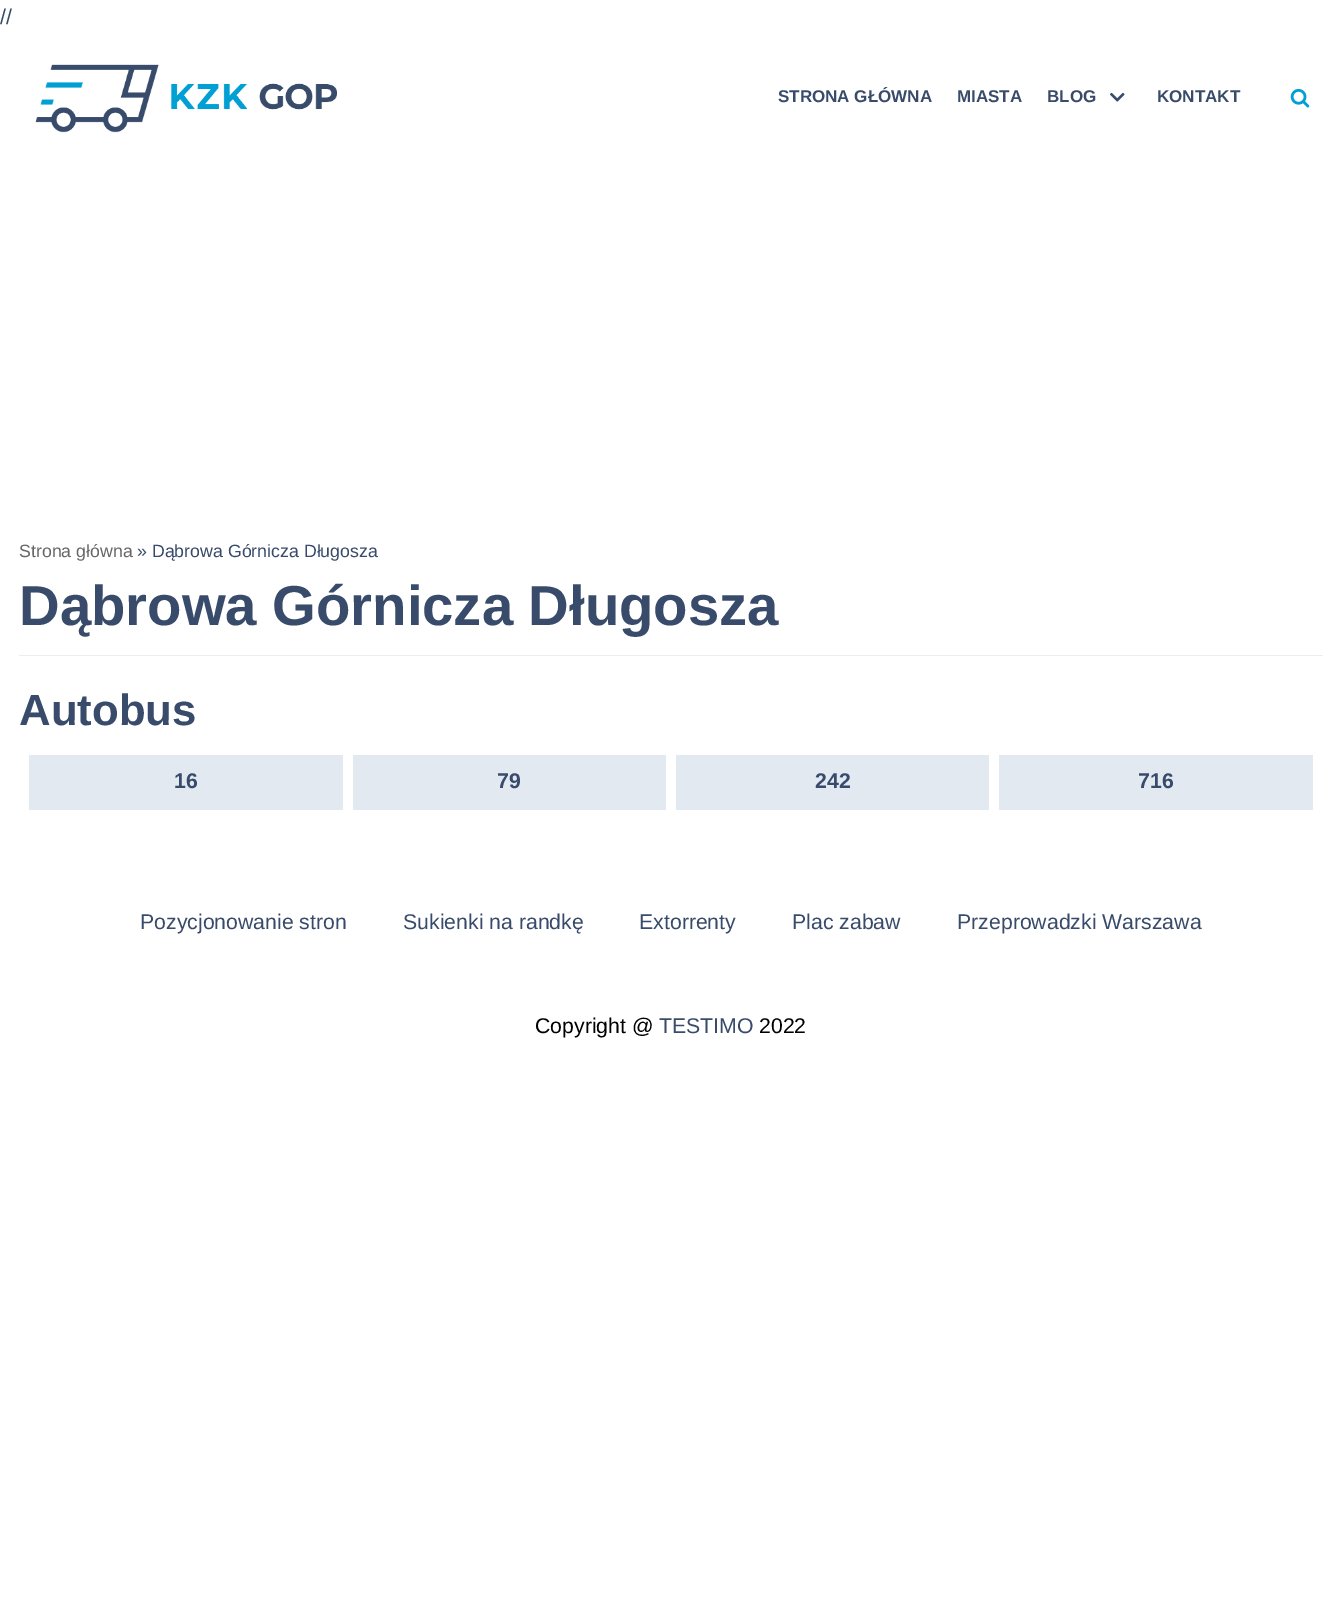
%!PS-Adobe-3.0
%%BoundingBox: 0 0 1341 1614
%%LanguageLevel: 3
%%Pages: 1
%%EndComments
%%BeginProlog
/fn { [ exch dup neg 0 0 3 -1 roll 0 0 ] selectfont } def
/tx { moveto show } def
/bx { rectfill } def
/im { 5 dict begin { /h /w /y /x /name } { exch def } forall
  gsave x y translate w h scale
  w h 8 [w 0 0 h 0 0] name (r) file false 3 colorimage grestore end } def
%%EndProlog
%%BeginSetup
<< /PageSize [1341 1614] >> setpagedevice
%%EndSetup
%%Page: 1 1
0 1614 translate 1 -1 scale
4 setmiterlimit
1 setgray
0 0 1341 1614 bx
/LiberationSans-Regular 21.25 fn
0.22 0.294 0.42 setrgbcolor
(//) 0 24 tx
(image0.raw) 35 64 302 69 im
/LiberationSans-Bold 17 fn
(STRONA GŁÓWNA) 778 102 tx
(MIASTA) 957 102 tx
(BLOG) 1047 102 tx
(image1.raw) 1110 92 15 10 im
(KONTAKT) 1157 102 tx
(image2.raw) 1290 88 20 20 im
0.929 setgray
19 655 1304 1 bx
/LiberationSans-Regular 17.75 fn
0.404 setgray
(Strona główna) 19 557 tx
0.22 0.294 0.42 setrgbcolor
(» Dąbrowa Górnicza Długosza) 137 557 tx
/LiberationSans-Bold 56.25 fn
(Dąbrowa Górnicza Długosza) 19 625 tx
/LiberationSans-Bold 43.75 fn
(Autobus) 19 725 tx
0.886 0.914 0.945 setrgbcolor
29 755 314 55 bx
/LiberationSans-Bold 21.25 fn
0.22 0.294 0.42 setrgbcolor
(16) 174 788 tx
0.886 0.914 0.945 setrgbcolor
353 755 313 55 bx
0.22 0.294 0.42 setrgbcolor
(79) 497 788 tx
0.886 0.914 0.945 setrgbcolor
676 755 313 55 bx
0.22 0.294 0.42 setrgbcolor
(242) 815 788 tx
0.886 0.914 0.945 setrgbcolor
999 755 314 55 bx
0.22 0.294 0.42 setrgbcolor
(716) 1138 788 tx
/LiberationSans-Regular 21.25 fn
(Pozycjonowanie stron) 140 929 tx
(Sukienki na randkę) 403 929 tx
(Extorrenty) 639 929 tx
(Plac zabaw) 792 929 tx
(Przeprowadzki Warszawa) 957 929 tx
0 setgray
(Copyright @) 535 1033 tx
0.22 0.294 0.42 setrgbcolor
(TESTIMO) 659 1033 tx
0 setgray
(2022) 759 1033 tx
showpage
%%EOF
